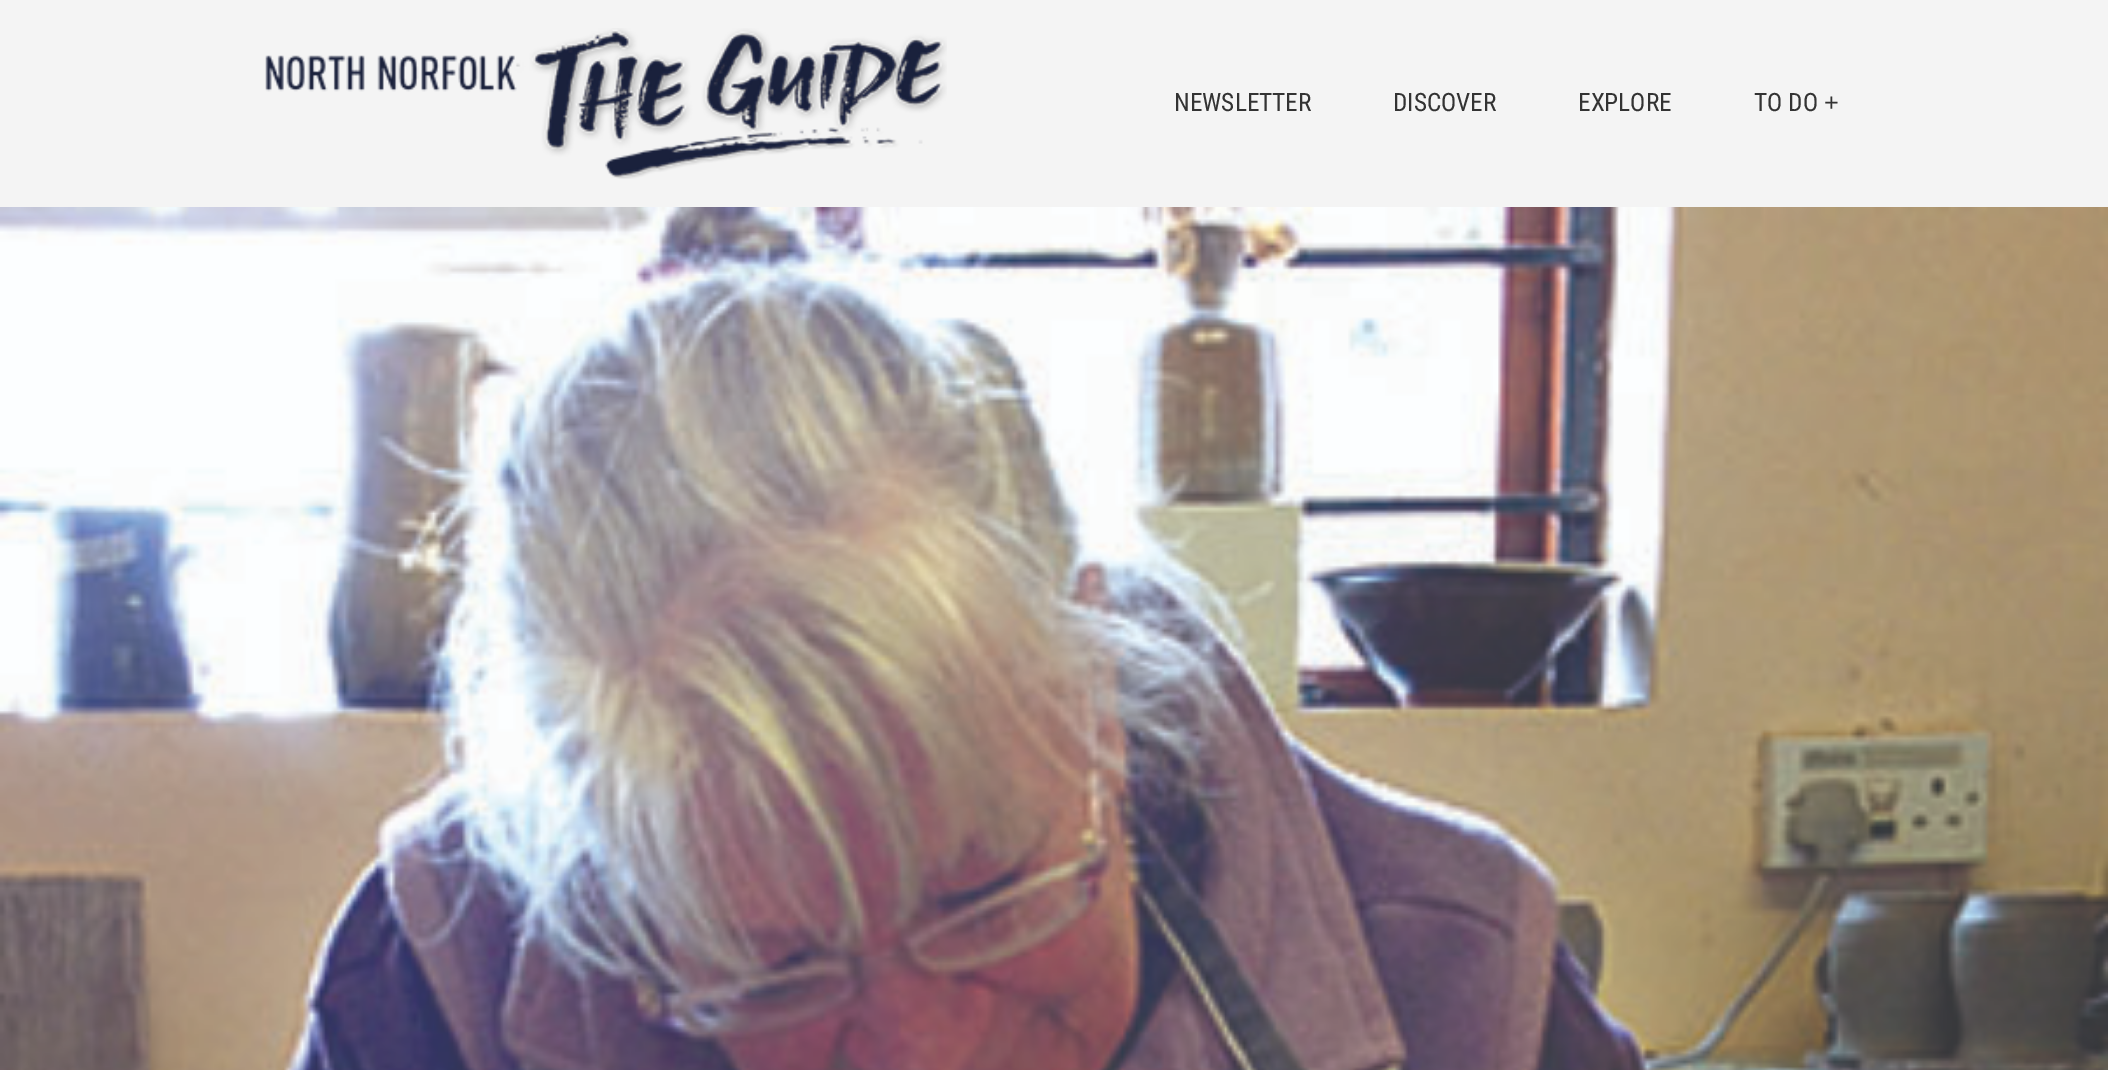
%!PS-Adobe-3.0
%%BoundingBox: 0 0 2108 1070
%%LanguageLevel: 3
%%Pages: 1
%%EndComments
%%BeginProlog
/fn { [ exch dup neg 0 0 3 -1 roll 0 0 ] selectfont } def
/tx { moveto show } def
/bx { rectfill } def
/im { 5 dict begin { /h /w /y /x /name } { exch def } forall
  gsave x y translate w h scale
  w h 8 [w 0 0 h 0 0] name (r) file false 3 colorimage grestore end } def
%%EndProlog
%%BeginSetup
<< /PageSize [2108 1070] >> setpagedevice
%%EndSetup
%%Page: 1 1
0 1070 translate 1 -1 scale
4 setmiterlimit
1 setgray
0 0 2108 1070 bx
0.957 setgray
0 0 2108 207 bx
(image0.raw) 265 28 682 151 im
/RobotoCondensed-Regular 25.25 fn
0.2 setgray
(NEWSLETTER) 1174 111 tx
(DISCOVER) 1393 111 tx
(EXPLORE) 1578 111 tx
(TO DO) 1754 111 tx
/LiberationSans-Regular 25.25 fn
(+) 1824 111 tx
(image1.raw) 0 207 2108 863 im
showpage
%%EOF
